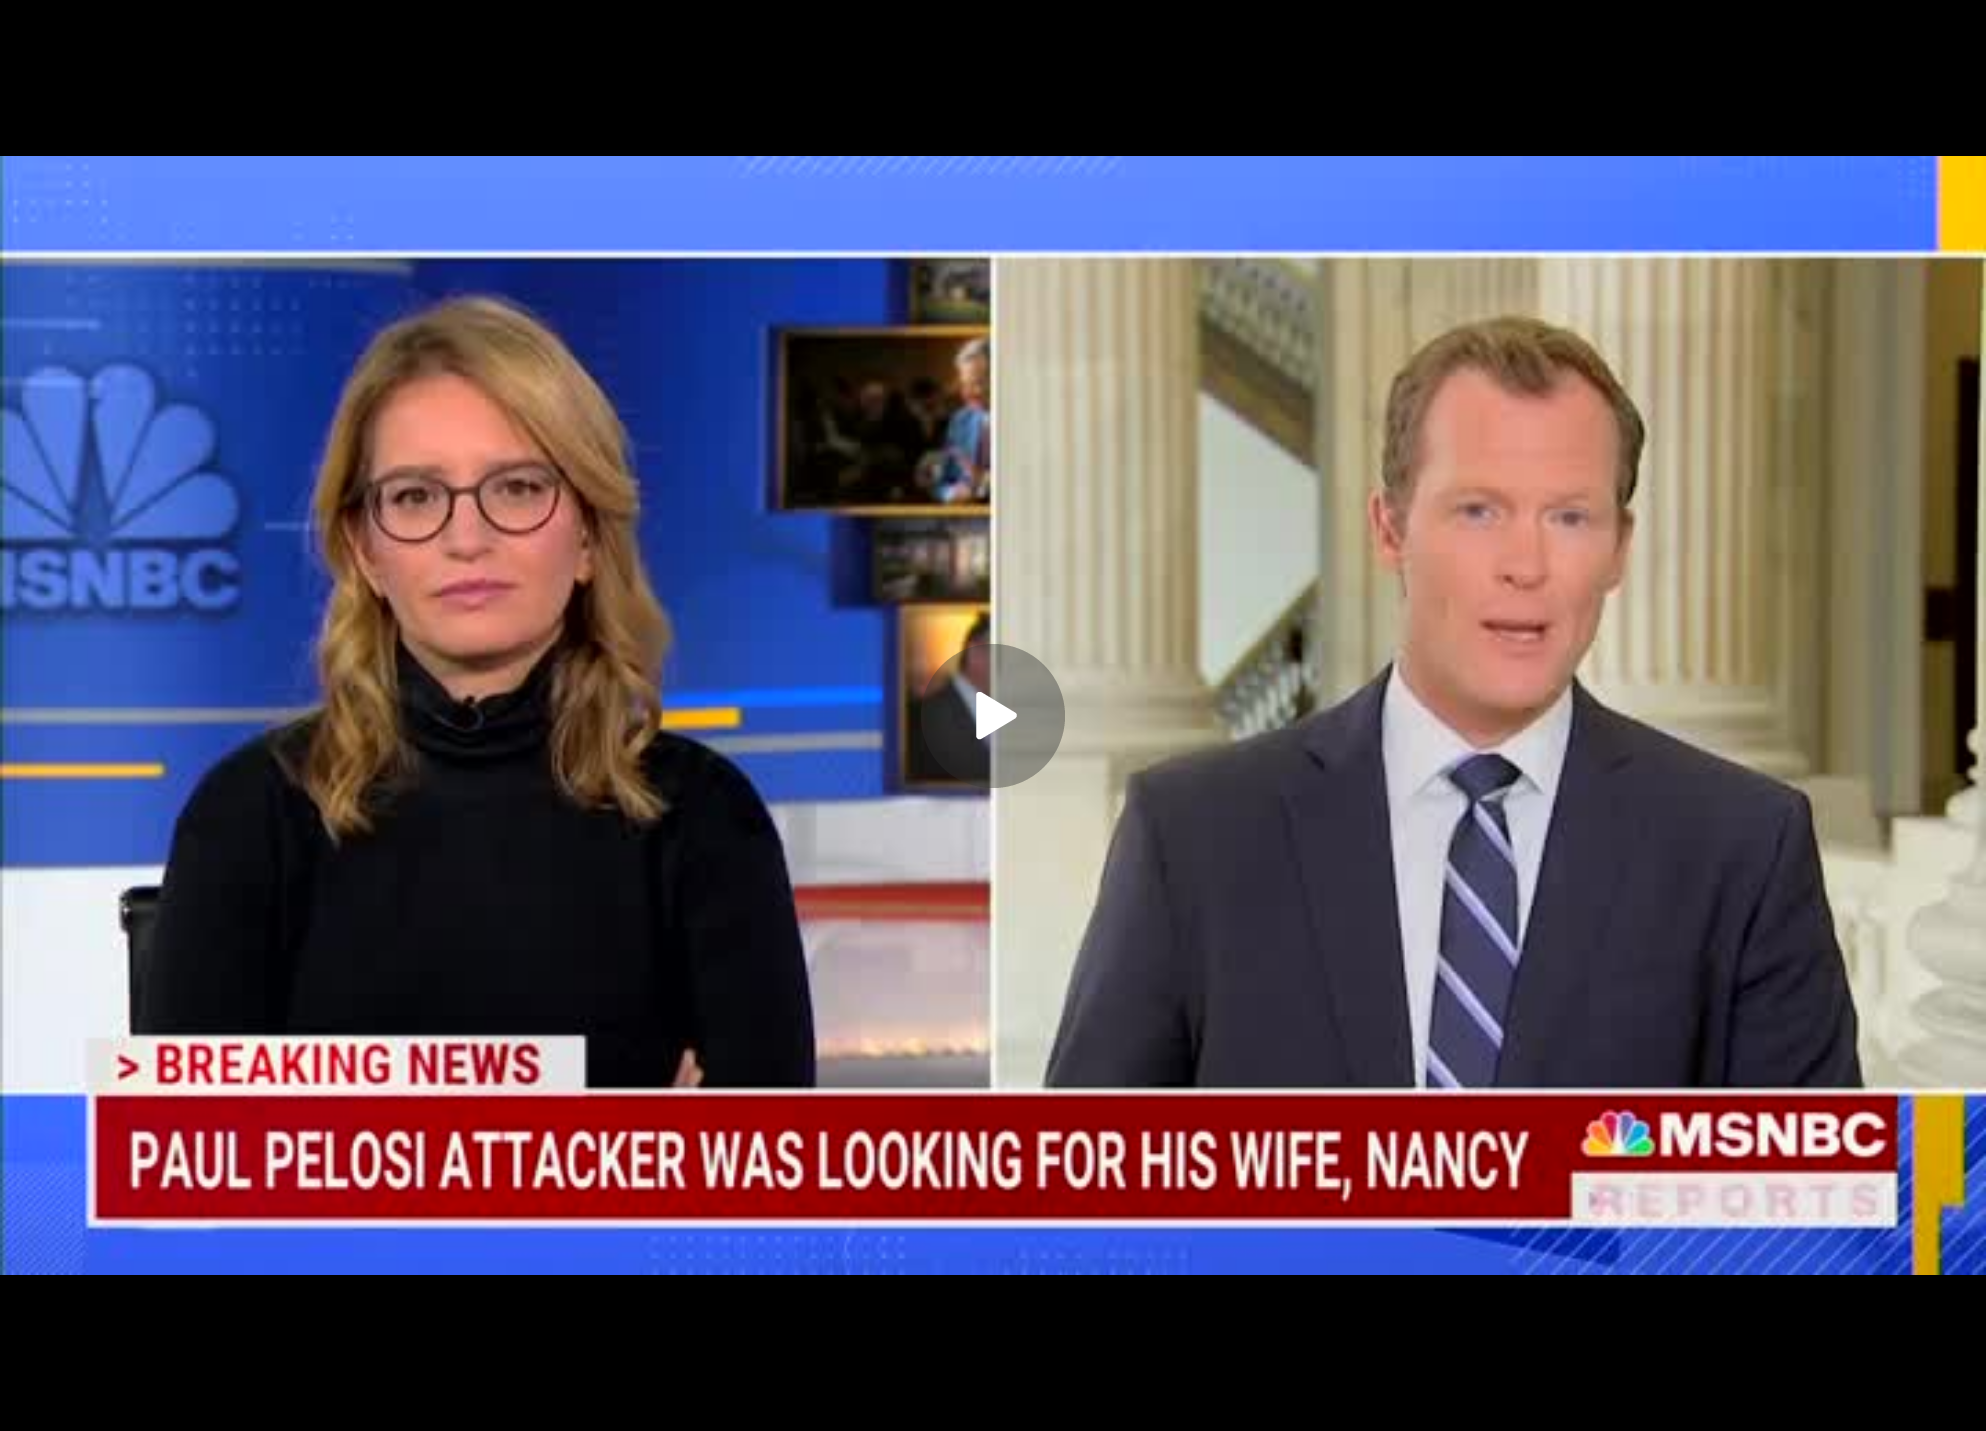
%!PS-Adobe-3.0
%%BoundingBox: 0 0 1986 1431
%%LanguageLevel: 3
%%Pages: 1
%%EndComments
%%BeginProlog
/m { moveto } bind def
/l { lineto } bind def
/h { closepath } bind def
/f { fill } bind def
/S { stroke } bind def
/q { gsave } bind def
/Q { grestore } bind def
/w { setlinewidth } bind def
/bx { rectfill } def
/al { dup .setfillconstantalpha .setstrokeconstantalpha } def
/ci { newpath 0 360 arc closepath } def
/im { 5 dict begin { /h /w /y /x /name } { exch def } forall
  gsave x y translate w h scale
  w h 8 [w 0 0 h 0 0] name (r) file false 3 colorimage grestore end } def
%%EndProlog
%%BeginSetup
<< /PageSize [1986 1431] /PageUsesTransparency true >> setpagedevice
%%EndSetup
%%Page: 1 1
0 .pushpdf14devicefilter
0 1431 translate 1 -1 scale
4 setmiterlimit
0 setgray
0 0 1986 1431 bx
(image0.raw) 0 156 1986 1119 im
0.4 al
0.188 setgray
993 716 72 ci f
1 al
1 setgray
1014 716 m 979 695 l 979 736 l h f
q
969 692 48 48 rectclip
6.5 w
1 setlinejoin
1013.5 715.5 m 979.5 695 l 979.5 736 l h S
Q
.poppdf14devicefilter showpage
%%EOF
